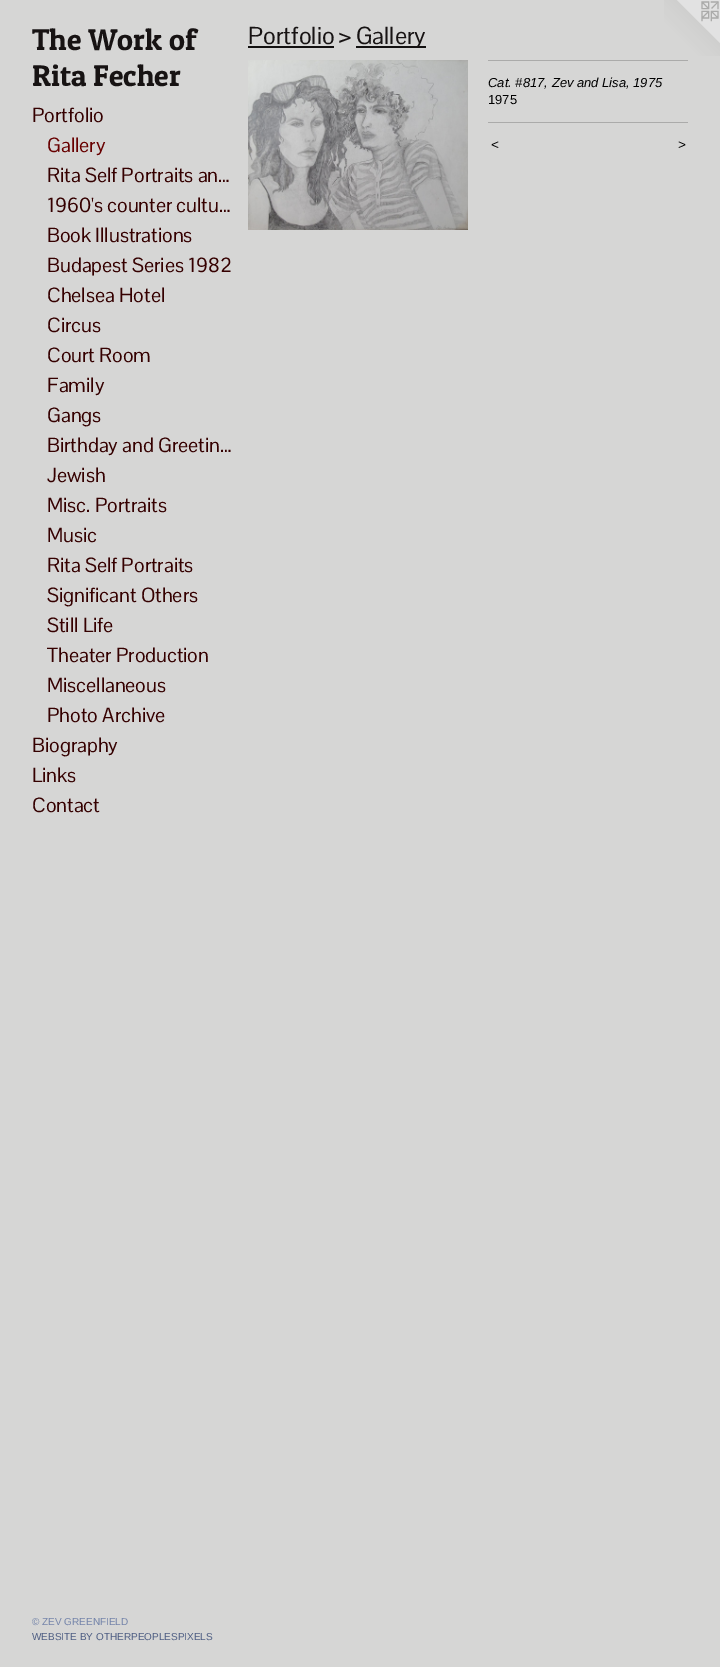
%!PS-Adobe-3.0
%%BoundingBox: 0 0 720 1667
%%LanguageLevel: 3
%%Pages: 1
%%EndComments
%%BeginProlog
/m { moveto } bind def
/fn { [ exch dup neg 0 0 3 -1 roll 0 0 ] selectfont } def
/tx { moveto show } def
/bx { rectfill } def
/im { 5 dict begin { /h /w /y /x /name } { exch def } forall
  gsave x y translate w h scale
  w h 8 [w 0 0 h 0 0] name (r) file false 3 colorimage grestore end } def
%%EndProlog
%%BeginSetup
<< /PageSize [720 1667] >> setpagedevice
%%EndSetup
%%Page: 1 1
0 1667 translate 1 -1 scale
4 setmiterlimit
0.839 0.839 0.835 setrgbcolor
0 0 720 1667 bx
/PatuaOne-Regular 30 fn
0.09 0.075 0.075 setrgbcolor
(The Work of) 32 50 tx
(Rita Fecher) 32 86 tx
/PontanoSans-Regular 20 fn
0.208 0 0 setrgbcolor
(Portfolio) 32 122 tx
0.408 0 0 setrgbcolor
(Gallery) 47 152 tx
0.208 0 0 setrgbcolor
(Rita Self Portraits an…) 47 182 tx
(1960's counter cultu…) 47 212 tx
(Book Illustrations) 47 242 tx
(Budapest Series 1982) 47 272 tx
(Chelsea Hotel) 47 302 tx
(Circus) 47 332 tx
(Court Room) 47 362 tx
(Family) 47 392 tx
(Gangs) 47 422 tx
(Birthday and Greetin…) 47 452 tx
(Jewish) 47 482 tx
(Misc. Portraits) 47 512 tx
(Music) 47 542 tx
(Rita Self Portraits) 47 572 tx
(Significant Others) 47 602 tx
(Still Life) 47 632 tx
(Theater Production) 47 662 tx
(Miscellaneous) 47 692 tx
(Photo Archive) 47 722 tx
(Biography) 32 752 tx
(Links) 32 782 tx
(Contact) 32 812 tx
/LiberationSans-Regular 10 fn
0.455 0.518 0.667 setrgbcolor
(© ZEV GREENFIELD) 32 1625 tx
0.306 0.369 0.514 setrgbcolor
(WEBSITE BY OTHERPEOPLESPIXELS) 32 1640 tx
/PontanoSans-Regular 24 fn
0.09 0.075 0.075 setrgbcolor
(Portfolio >) 248 44 tx
0.075 0.067 0.067 setrgbcolor
248 46 86 2 bx
356 46 70 2 bx
0.09 0.075 0.075 setrgbcolor
(Gallery) 356 44 tx
(image0.raw) 248 60 220 170 im
0.671 0.671 0.667 setrgbcolor
488 60 200 1 bx
/LiberationSans-Italic 13 fn
0 setgray
(Cat. #817, Zev and Lisa, 1975) 488 87 tx
/LiberationSans-Regular 13 fn
(1975) 488 104 tx
0.671 0.671 0.667 setrgbcolor
488 122 200 1 bx
/LiberationSans-Italic 13 fn
0 setgray
491 149 m 1 0 (<) ashow
678 149 m 1 0 (>) ashow
(image1.raw) 664 0 56 56 im
showpage
%%EOF
